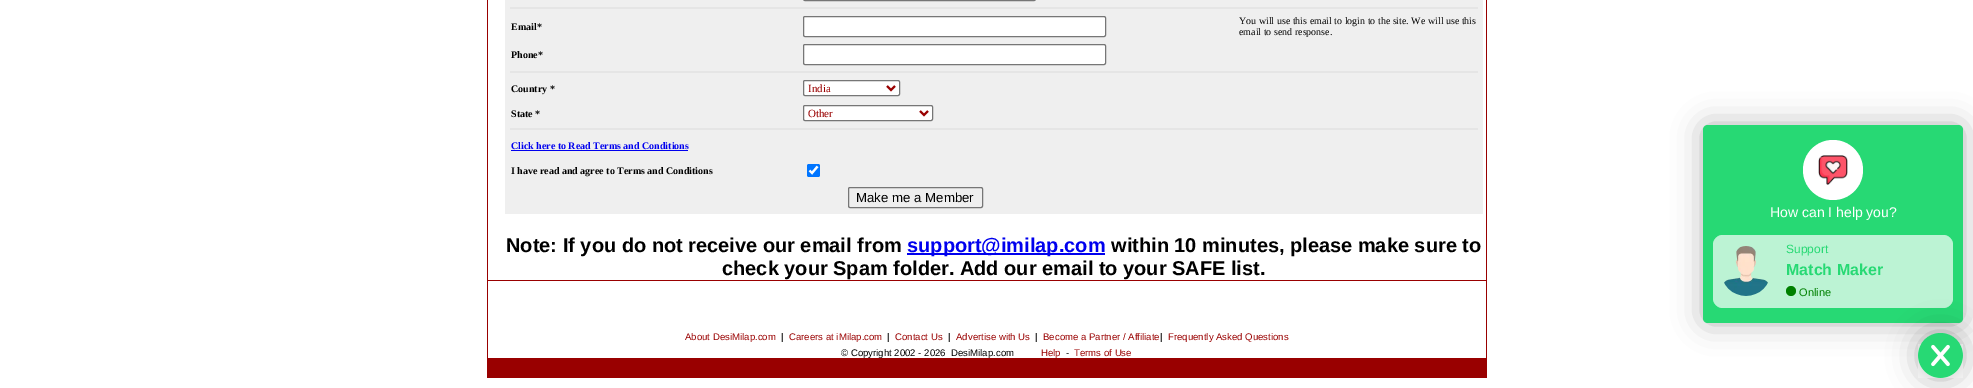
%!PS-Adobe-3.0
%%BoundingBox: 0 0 1973 388
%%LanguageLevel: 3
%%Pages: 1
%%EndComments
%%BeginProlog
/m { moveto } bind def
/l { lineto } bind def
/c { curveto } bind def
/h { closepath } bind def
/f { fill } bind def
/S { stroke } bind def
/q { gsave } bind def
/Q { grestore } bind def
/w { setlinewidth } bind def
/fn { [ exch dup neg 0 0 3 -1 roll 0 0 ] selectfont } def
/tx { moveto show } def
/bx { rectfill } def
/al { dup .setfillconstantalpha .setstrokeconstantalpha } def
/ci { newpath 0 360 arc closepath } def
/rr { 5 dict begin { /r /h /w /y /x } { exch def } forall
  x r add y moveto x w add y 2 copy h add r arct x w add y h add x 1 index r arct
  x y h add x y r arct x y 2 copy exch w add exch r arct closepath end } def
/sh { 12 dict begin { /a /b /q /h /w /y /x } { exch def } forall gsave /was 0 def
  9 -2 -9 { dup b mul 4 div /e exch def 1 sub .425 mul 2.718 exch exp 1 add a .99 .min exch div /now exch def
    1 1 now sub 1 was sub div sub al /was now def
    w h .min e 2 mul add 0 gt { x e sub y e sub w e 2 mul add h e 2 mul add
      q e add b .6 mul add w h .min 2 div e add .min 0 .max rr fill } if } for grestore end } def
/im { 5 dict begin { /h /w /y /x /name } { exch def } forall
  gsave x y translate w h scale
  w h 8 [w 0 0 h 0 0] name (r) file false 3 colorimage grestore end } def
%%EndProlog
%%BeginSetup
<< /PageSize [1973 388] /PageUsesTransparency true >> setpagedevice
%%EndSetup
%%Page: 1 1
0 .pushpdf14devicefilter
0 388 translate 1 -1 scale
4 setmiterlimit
1 setgray
0 0 1973 388 bx
0.6 0 0 setrgbcolor
1486 0 1 358 bx
487 280 1000 1 bx
487 0 1 358 bx
0.937 setgray
505 0 978 214 bx
0.463 setgray
803.5 -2.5 232 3 1.5 rr S
0.898 setgray
510 7 968 2 bx
/LiberationSerif-Bold 10 fn
0 setgray
(Email*) 511 30 tx
1 setgray
803.5 16.5 302 20 1.5 rr q f Q
0.463 setgray
S
/LiberationSerif-Regular 10 fn
0 setgray
(You will use this email to login to the site. We will use this) 1239 24 tx
(email to send response.) 1239 35 tx
/LiberationSerif-Bold 10 fn
(Phone*) 511 58 tx
1 setgray
803.5 44.5 302 20 1.5 rr q f Q
0.463 setgray
S
0.898 setgray
510 71 968 2 bx
0 setgray
(Country *) 511 92 tx
1 setgray
803.5 80.5 96 15 1.5 rr q f Q
0.463 setgray
S
0.6 0 0 setrgbcolor
2 w
887 86 m 891 90 l 895 86 l S
/LiberationSerif-Regular 11 fn
(India) 808 92 tx
/LiberationSerif-Bold 10 fn
0 setgray
(State *) 511 117 tx
1 setgray
803.5 105.5 129 15 1.5 rr q f Q
0.463 setgray
1 w
S
0.6 0 0 setrgbcolor
2 w
920 111 m 924 115 l 928 111 l S
/LiberationSerif-Regular 11 fn
(Other) 808 117 tx
0.898 setgray
510 128 968 2 bx
/LiberationSerif-Bold 10 fn
0 0 0.933 setrgbcolor
(Click here to Read Terms and Conditions) 511 149 tx
511 150 177 1 bx
0 setgray
(I have read and agree to Terms and Conditions) 511 174 tx
0 0.459 1 setrgbcolor
807 164 13 13 2 rr f
1 setgray
2.1 w
809.5 170.5 m 812 173 l 817.5 166.5 l S
0.463 setgray
1 w
848.5 187.5 134 20 1.5 rr S
/LiberationSans-Regular 13.25 fn
0 setgray
(Make me a Member) 856 202 tx
/LiberationSans-Bold 20 fn
(Note: If you do not receive our email from) 506 252 tx
0 0 0.933 setrgbcolor
907 253 198 2 bx
(support@imilap.com) 907 252 tx
0 setgray
(within 10 minutes, please make sure to) 1111 252 tx
(check your Spam folder. Add our email to your SAFE list.) 722 275 tx
/LiberationSans-Regular 9.6 fn
0.6 0 0 setrgbcolor
(About DesiMilap.com) 685 340 tx
0 setgray
(|) 781 340 tx
0.6 0 0 setrgbcolor
(Careers at iMilap.com) 789 340 tx
0 setgray
(|) 887 340 tx
0.6 0 0 setrgbcolor
(Contact Us) 895 340 tx
0 setgray
(|) 948 340 tx
0.6 0 0 setrgbcolor
(Advertise with Us) 956 340 tx
0 setgray
(|) 1035 340 tx
0.6 0 0 setrgbcolor
(Become a Partner / Affiliate) 1043 340 tx
0 setgray
(|) 1160 340 tx
0.6 0 0 setrgbcolor
(Frequently Asked Questions) 1168 340 tx
0 setgray
(© Copyright 2002 - 2026  DesiMilap.com) 841 356 tx
0.6 0 0 setrgbcolor
(Help) 1041 356 tx
0 setgray
(-) 1066 356 tx
0.6 0 0 setrgbcolor
(Terms of Use) 1074 356 tx
487 358 1000 20 bx
0 setgray
1703 125 260 198 5 15 0.3 sh
0.153 0.851 0.455 setrgbcolor
1708 125 m 1958 125 l 1961 125 1963 127 1963 130 c 1963 225 l 1703 225 l 1703 130 l 1703 127 1705 125 1708 125 c h f
1 setgray
1833 170 30 ci f
(image0.raw) 1818 155 30 30 im
/LiberationSans-Regular 14 fn
(How can I help you?) 1770 217 tx
0.153 0.851 0.455 setrgbcolor
1703 225 m 1963 225 l 1963 318 l 1963 321 1961 323 1958 323 c 1708 323 l 1705 323 1703 321 1703 318 c h f
1 setgray
1713 235 240 73 10 rr f
0.31 al
0.153 0.851 0.455 setrgbcolor
1713 235 240 73 10 rr f
1 al
(image1.raw) 1724 246 44 50 im
/LiberationSans-Regular 12 fn
(Support) 1786 253 tx
/LiberationSans-Bold 16 fn
(Match Maker) 1786 275 tx
0 0.502 0 setrgbcolor
1791 291 5 ci f
/LiberationSans-Regular 11 fn
(Online) 1799 296 tx
0 setgray
1918 333 45 45 22.5 15 0.3 sh
0.153 0.851 0.455 setrgbcolor
1940.5 355.5 22.5 ci f
(image2.raw) 1918 344 45 34 im
.poppdf14devicefilter showpage
%%EOF
